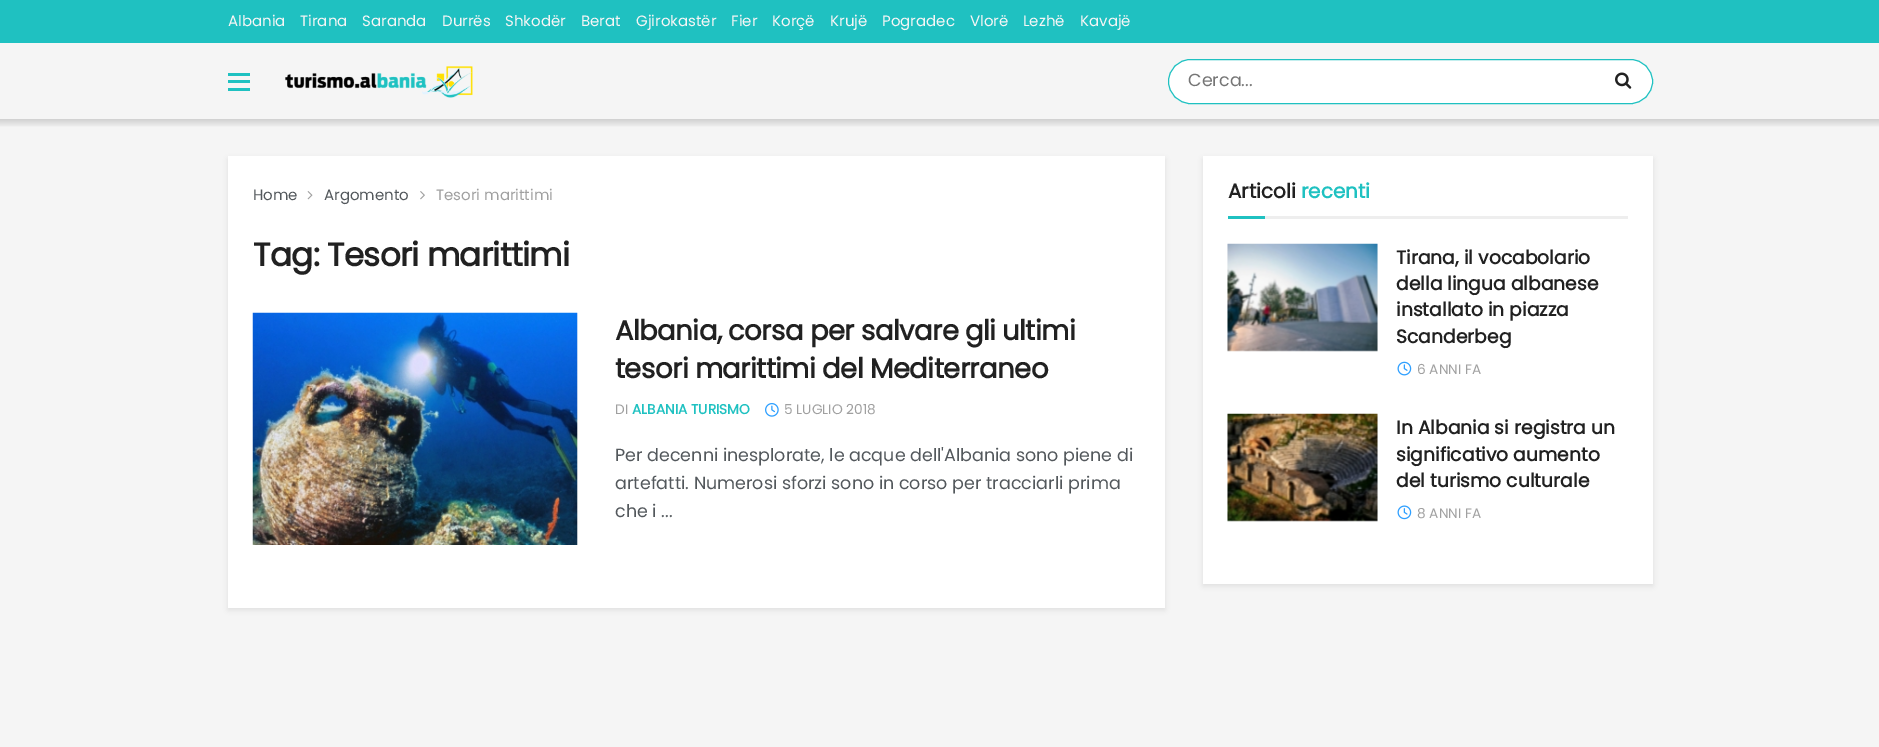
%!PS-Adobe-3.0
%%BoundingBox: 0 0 1879 747
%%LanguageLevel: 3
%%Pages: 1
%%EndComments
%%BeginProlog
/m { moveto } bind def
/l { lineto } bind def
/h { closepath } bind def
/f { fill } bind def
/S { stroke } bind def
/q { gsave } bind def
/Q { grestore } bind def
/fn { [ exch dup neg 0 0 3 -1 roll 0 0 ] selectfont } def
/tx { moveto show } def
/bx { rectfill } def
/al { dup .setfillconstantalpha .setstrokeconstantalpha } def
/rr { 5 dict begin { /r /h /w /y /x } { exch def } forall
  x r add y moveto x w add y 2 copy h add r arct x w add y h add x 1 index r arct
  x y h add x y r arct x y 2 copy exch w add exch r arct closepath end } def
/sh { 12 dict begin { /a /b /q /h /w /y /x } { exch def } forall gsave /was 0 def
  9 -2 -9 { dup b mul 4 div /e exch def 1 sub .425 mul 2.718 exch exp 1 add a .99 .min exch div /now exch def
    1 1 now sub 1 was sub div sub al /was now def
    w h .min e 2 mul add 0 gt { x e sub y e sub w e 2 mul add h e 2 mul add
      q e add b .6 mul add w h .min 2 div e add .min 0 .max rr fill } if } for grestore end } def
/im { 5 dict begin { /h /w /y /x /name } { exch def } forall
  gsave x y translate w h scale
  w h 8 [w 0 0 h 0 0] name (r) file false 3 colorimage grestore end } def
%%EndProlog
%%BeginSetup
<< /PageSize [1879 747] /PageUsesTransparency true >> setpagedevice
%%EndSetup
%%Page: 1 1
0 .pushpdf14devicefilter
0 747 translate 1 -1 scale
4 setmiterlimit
0.961 setgray
0 0 1879 747 bx
0.122 0.757 0.757 setrgbcolor
0 0 1879 43 bx
/Poppins-Regular 15 fn
0.961 setgray
(Albania) 228 26 tx
(Tirana) 300 26 tx
(Saranda) 362 26 tx
(Durrës) 442 26 tx
(Shkodër) 505 26 tx
(Berat) 581 26 tx
(Gjirokastër) 636 26 tx
(Fier) 731 26 tx
(Korçë) 772 26 tx
(Krujë) 830 26 tx
(Pogradec) 882 26 tx
(Vlorë) 970 26 tx
(Lezhë) 1023 26 tx
(Kavajë) 1080 26 tx
0.122 0.757 0.757 setrgbcolor
228 73 22 3 bx
228 80 22 3 bx
228 88 22 3 bx
(image0.raw) 285 66 188 32 im
1 setgray
1168.5 59.5 484 44 22 rr q f Q
0.122 0.757 0.757 setrgbcolor
S
/Poppins-Regular 17.5 fn
0.459 setgray
(Cerca...) 1188 86 tx
(image1.raw) 1615 72 17 17 im
q 0 119 m 1879 119 l 1879 127 l 0 127 l h clip newpath
<< /ShadingType 2 /ColorSpace /DeviceRGB /Coords [940 119 940 128] /Extend [true true] /Function << /FunctionType 2 /Domain [0 1] /C0 [0.816 0.816 0.816] /C1 [0.961 0.961 0.961] /N 1 >> >> shfill Q
0 setgray
228 159 937 451 0 2.5 0.08 sh
1 setgray
228 156 937 452 bx
/Poppins-Regular 15 fn
0.325 0.345 0.361 setrgbcolor
(Home) 253 200 tx
(image2.raw) 307 191 6 9 im
(Argomento) 324 200 tx
(image3.raw) 420 191 5 9 im
0.627 setgray
(Tesori marittimi) 436 200 tx
/Poppins-Bold 32.5 fn
0.129 setgray
253 266 m -0.65 0 (Tag: Tesori marittimi) ashow
0.969 setgray
577 313 1 232 bx
(image4.raw) 252 312 326 233 im
/Poppins-Bold 27.5 fn
0.129 setgray
615 340 m -0.55 0 (Albania, corsa per salvare gli ultimi) ashow
615 378 m -0.55 0 (tesori marittimi del Mediterraneo) ashow
/Poppins-Regular 13.75 fn
0.627 setgray
(DI) 615 414 tx
/Poppins-Bold 13.75 fn
0.122 0.757 0.757 setrgbcolor
(ALBANIA TURISMO) 632 414 tx
(image5.raw) 765 403 14 14 im
/Poppins-Regular 13.75 fn
0.627 setgray
(5 LUGLIO 2018) 784 414 tx
/Poppins-Regular 17.5 fn
0.325 0.345 0.361 setrgbcolor
(Per decenni inesplorate, le acque dell'Albania sono piene di) 615 461 tx
(artefatti. Numerosi sforzi sono in corso per tracciarli prima) 615 489 tx
(che i ...) 615 517 tx
0 setgray
1203 159 450 427 0 2.5 0.08 sh
1 setgray
1203 156 450 428 bx
0.933 setgray
1265 216 363 3 bx
/Poppins-Bold 20 fn
0.129 setgray
(Articoli) 1228 198 tx
0.122 0.757 0.757 setrgbcolor
(recenti) 1301 198 tx
1228 216 37 3 bx
0.969 setgray
1228 244 150 107 bx
(image7.raw) 1227 244 1 107 im
(image6.raw) 1227 243 151 109 im
/Poppins-Bold 18.75 fn
0.129 setgray
(Tirana, il vocabolario) 1396 264 tx
(della lingua albanese) 1396 290 tx
(installato in piazza) 1396 316 tx
(Scanderbeg) 1396 343 tx
(image8.raw) 1397 361 15 15 im
/Poppins-Regular 13.75 fn
0.627 setgray
(6 ANNI FA) 1417 374 tx
0.969 setgray
1228 414 150 107 bx
(image7.raw) 1227 414 1 107 im
(image9.raw) 1227 413 151 109 im
/Poppins-Bold 18.75 fn
0.129 setgray
(In Albania si registra un) 1396 434 tx
(significativo aumento) 1396 461 tx
(del turismo culturale) 1396 487 tx
(image10.raw) 1397 505 15 15 im
/Poppins-Regular 13.75 fn
0.627 setgray
(8 ANNI FA) 1417 518 tx
.poppdf14devicefilter showpage
%%EOF
